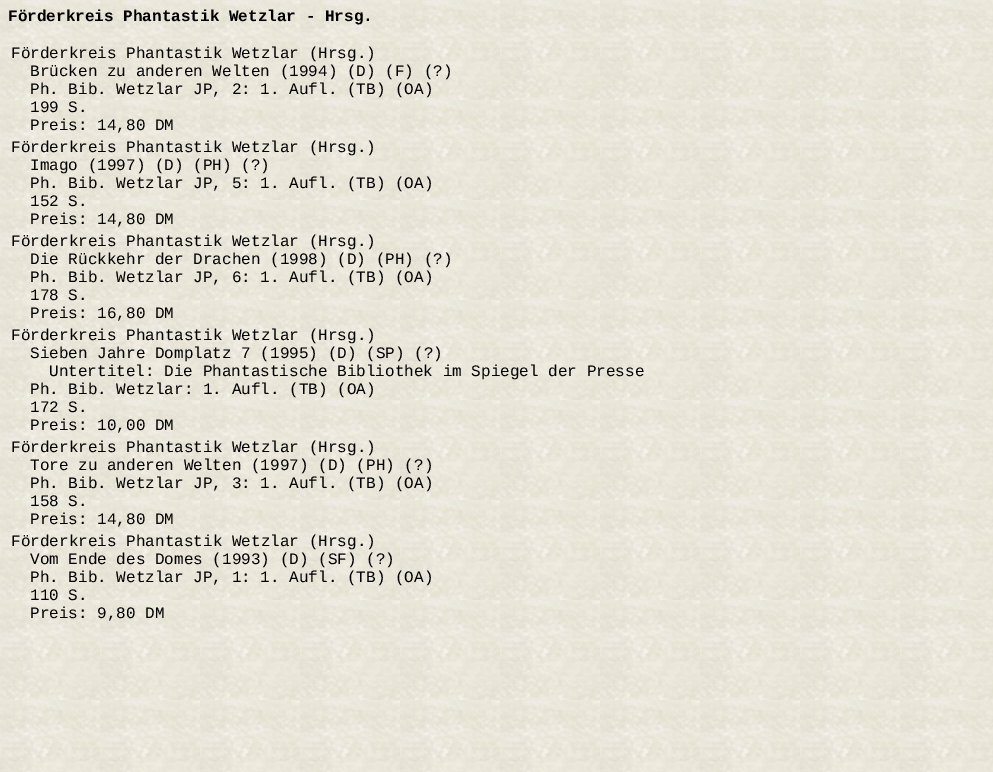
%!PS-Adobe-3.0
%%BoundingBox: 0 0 993 772
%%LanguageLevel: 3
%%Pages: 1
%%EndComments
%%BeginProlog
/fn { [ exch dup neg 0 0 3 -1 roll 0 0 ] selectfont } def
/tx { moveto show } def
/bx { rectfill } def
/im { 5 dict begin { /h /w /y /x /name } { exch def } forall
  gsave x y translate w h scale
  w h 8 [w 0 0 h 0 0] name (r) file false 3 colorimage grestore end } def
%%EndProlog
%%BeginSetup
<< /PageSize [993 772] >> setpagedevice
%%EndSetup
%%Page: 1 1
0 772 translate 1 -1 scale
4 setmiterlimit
1 setgray
0 0 993 772 bx
(image0.raw) 0 0 993 772 im
/LiberationMono-Bold 16 fn
0 setgray
(Förderkreis Phantastik Wetzlar - Hrsg.) 8 21 tx
/LiberationMono-Regular 16 fn
(Förderkreis Phantastik Wetzlar \(Hrsg.\)) 11 58 tx
(Brücken zu anderen Welten \(1994\) \(D\) \(F\) \(?\)) 30 76 tx
(Ph. Bib. Wetzlar JP, 2: 1. Aufl. \(TB\) \(OA\)) 30 94 tx
(199 S.) 30 112 tx
(Preis: 14,80 DM) 30 130 tx
(Förderkreis Phantastik Wetzlar \(Hrsg.\)) 11 152 tx
(Imago \(1997\) \(D\) \(PH\) \(?\)) 30 170 tx
(Ph. Bib. Wetzlar JP, 5: 1. Aufl. \(TB\) \(OA\)) 30 188 tx
(152 S.) 30 206 tx
(Preis: 14,80 DM) 30 224 tx
(Förderkreis Phantastik Wetzlar \(Hrsg.\)) 11 246 tx
(Die Rückkehr der Drachen \(1998\) \(D\) \(PH\) \(?\)) 30 264 tx
(Ph. Bib. Wetzlar JP, 6: 1. Aufl. \(TB\) \(OA\)) 30 282 tx
(178 S.) 30 300 tx
(Preis: 16,80 DM) 30 318 tx
(Förderkreis Phantastik Wetzlar \(Hrsg.\)) 11 340 tx
(Sieben Jahre Domplatz 7 \(1995\) \(D\) \(SP\) \(?\)) 30 358 tx
(Untertitel: Die Phantastische Bibliothek im Spiegel der Presse) 49 376 tx
(Ph. Bib. Wetzlar: 1. Aufl. \(TB\) \(OA\)) 30 394 tx
(172 S.) 30 412 tx
(Preis: 10,00 DM) 30 430 tx
(Förderkreis Phantastik Wetzlar \(Hrsg.\)) 11 452 tx
(Tore zu anderen Welten \(1997\) \(D\) \(PH\) \(?\)) 30 470 tx
(Ph. Bib. Wetzlar JP, 3: 1. Aufl. \(TB\) \(OA\)) 30 488 tx
(158 S.) 30 506 tx
(Preis: 14,80 DM) 30 524 tx
(Förderkreis Phantastik Wetzlar \(Hrsg.\)) 11 546 tx
(Vom Ende des Domes \(1993\) \(D\) \(SF\) \(?\)) 30 564 tx
(Ph. Bib. Wetzlar JP, 1: 1. Aufl. \(TB\) \(OA\)) 30 582 tx
(110 S.) 30 600 tx
(Preis: 9,80 DM) 30 618 tx
showpage
%%EOF
